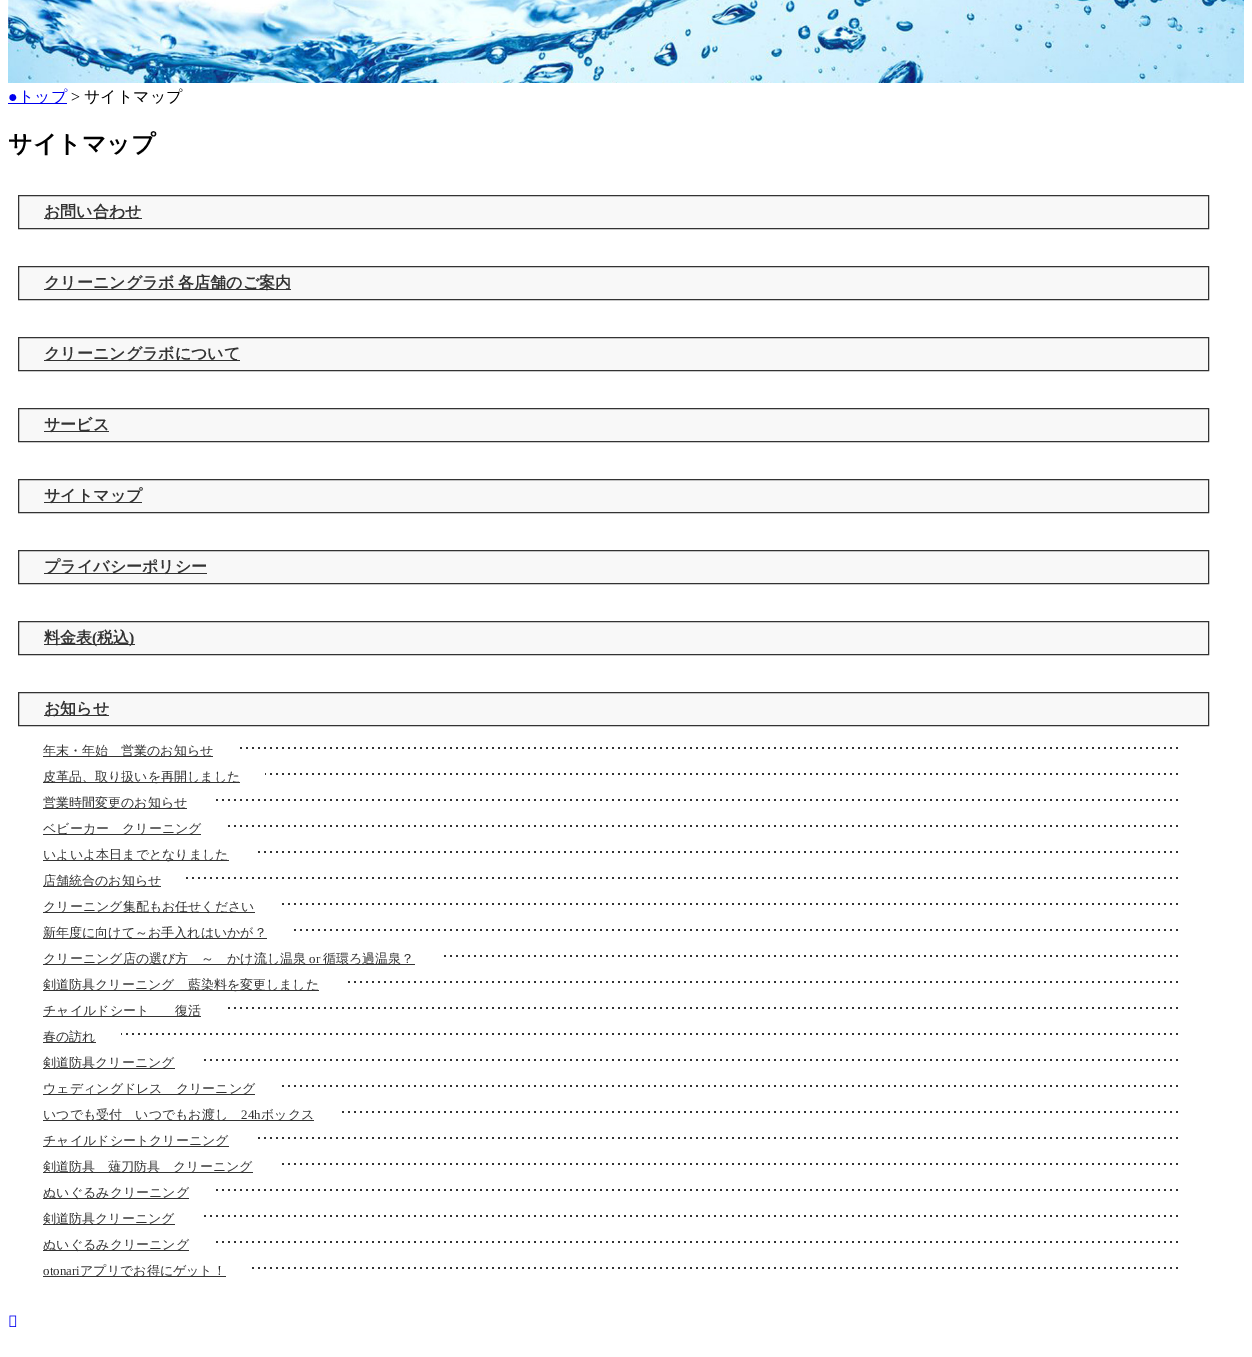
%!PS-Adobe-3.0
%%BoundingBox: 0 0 1252 1357
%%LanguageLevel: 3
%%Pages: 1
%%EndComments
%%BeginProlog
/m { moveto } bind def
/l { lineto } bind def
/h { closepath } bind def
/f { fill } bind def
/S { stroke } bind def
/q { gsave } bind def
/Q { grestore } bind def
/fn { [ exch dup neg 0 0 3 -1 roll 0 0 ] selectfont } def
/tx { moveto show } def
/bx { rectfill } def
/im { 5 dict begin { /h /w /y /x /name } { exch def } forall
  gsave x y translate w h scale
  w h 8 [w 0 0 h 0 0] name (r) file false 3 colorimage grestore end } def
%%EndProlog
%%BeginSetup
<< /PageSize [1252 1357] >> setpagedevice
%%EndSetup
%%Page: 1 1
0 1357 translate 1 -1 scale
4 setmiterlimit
1 setgray
0 0 1252 1357 bx
(image0.raw) 8 0 1236 83 im
/LiberationSerif-Regular 16 fn
0 0 0.933 setrgbcolor
(●) 8 102 tx
8 103 59 1 bx
/WenQuanYiZenHei-Medium 16 fn
(トップ) 18 102 tx
/LiberationSerif-Regular 16 fn
0 setgray
(>) 71 102 tx
/WenQuanYiZenHei-Medium 16 fn
(サイトマップ) 84 102 tx
/WenQuanYiZenHei-Bold 24 fn
(サイトマップ) 8 152 tx
0.973 setgray
18.5 195.5 m 1208.5 195.5 l 1208.5 228.5 l 18.5 228.5 l h q f Q
0.2 setgray
S
44 218 98 1 bx
/WenQuanYiZenHei-Bold 16 fn
(お問い合わせ) 44 217 tx
0.973 setgray
18.5 266.5 m 1208.5 266.5 l 1208.5 299.5 l 18.5 299.5 l h q f Q
0.2 setgray
S
44 289 247 1 bx
44 288 m -1 0 32 (クリーニングラボ 各店舗のご案内) widthshow
0.973 setgray
18.5 337.5 m 1208.5 337.5 l 1208.5 370.5 l 18.5 370.5 l h q f Q
0.2 setgray
S
44 360 196 1 bx
(クリーニングラボについて) 44 359 tx
0.973 setgray
18.5 408.5 m 1208.5 408.5 l 1208.5 441.5 l 18.5 441.5 l h q f Q
0.2 setgray
S
44 431 65 1 bx
(サービス) 44 430 tx
0.973 setgray
18.5 479.5 m 1208.5 479.5 l 1208.5 512.5 l 18.5 512.5 l h q f Q
0.2 setgray
S
44 502 98 1 bx
(サイトマップ) 44 501 tx
0.973 setgray
18.5 550.5 m 1208.5 550.5 l 1208.5 583.5 l 18.5 583.5 l h q f Q
0.2 setgray
S
44 573 163 1 bx
(プライバシーポリシー) 44 572 tx
0.973 setgray
18.5 621.5 m 1208.5 621.5 l 1208.5 654.5 l 18.5 654.5 l h q f Q
0.2 setgray
S
44 644 91 1 bx
(料金表) 44 643 tx
/LiberationSerif-Bold 16 fn
(\() 92 643 tx
/WenQuanYiZenHei-Bold 16 fn
(税込) 97 643 tx
/LiberationSerif-Bold 16 fn
(\)) 129 643 tx
0.973 setgray
18.5 692.5 m 1208.5 692.5 l 1208.5 725.5 l 18.5 725.5 l h q f Q
0.2 setgray
S
44 715 65 1 bx
/WenQuanYiZenHei-Bold 16 fn
(お知らせ) 44 714 tx
(image1.raw) 240 747 938 2 im
43 756 170 1 bx
/WenQuanYiZenHei-Medium 13 fn
(年末・年始　営業のお知らせ) 43 755 tx
(image2.raw) 265 773 913 2 im
43 782 197 1 bx
(皮革品、取り扱いを再開しました) 43 781 tx
(image3.raw) 216 799 962 2 im
43 808 144 1 bx
(営業時間変更のお知らせ) 43 807 tx
(image4.raw) 228 825 950 2 im
43 834 158 1 bx
(ベビーカー　クリーニング) 43 833 tx
(image5.raw) 258 851 920 2 im
43 860 186 1 bx
(いよいよ本日までとなりました) 43 859 tx
(image6.raw) 186 877 992 2 im
43 886 118 1 bx
(店舗統合のお知らせ) 43 885 tx
(image7.raw) 282 903 896 2 im
43 912 212 1 bx
(クリーニング集配もお任せください) 43 911 tx
(image8.raw) 294 929 884 2 im
43 938 224 1 bx
(新年度に向けて～お手入れはいかが？) 43 937 tx
(image9.raw) 444 955 734 2 im
43 964 372 1 bx
(クリーニング店の選び方　～　かけ流し温泉) 43 963 tx
/LiberationSerif-Regular 13 fn
(or) 309 963 tx
/WenQuanYiZenHei-Medium 13 fn
(循環ろ過温泉？) 323 963 tx
(image10.raw) 348 981 830 2 im
43 990 276 1 bx
(剣道防具クリーニング　藍染料を変更しました) 43 989 tx
(image4.raw) 228 1007 950 2 im
43 1016 158 1 bx
(チャイルドシート　　復活) 43 1015 tx
(image11.raw) 121 1033 1057 2 im
43 1042 53 1 bx
(春の訪れ) 43 1041 tx
(image12.raw) 204 1059 974 2 im
43 1068 132 1 bx
(剣道防具クリーニング) 43 1067 tx
(image7.raw) 282 1085 896 2 im
43 1094 212 1 bx
(ウェディングドレス　クリーニング) 43 1093 tx
(image13.raw) 342 1111 836 2 im
43 1120 271 1 bx
(いつでも受付　いつでもお渡し) 43 1119 tx
/LiberationSerif-Regular 13 fn
(24h) 241 1119 tx
/WenQuanYiZenHei-Medium 13 fn
(ボックス) 261 1119 tx
(image5.raw) 258 1137 920 2 im
43 1146 186 1 bx
(チャイルドシートクリーニング) 43 1145 tx
(image7.raw) 282 1163 896 2 im
43 1172 210 1 bx
(剣道防具　薙刀防具　クリーニング) 43 1171 tx
(image3.raw) 216 1189 962 2 im
43 1198 146 1 bx
(ぬいぐるみクリーニング) 43 1197 tx
(image12.raw) 204 1215 974 2 im
43 1224 132 1 bx
(剣道防具クリーニング) 43 1223 tx
(image3.raw) 216 1241 962 2 im
43 1250 146 1 bx
(ぬいぐるみクリーニング) 43 1249 tx
(image14.raw) 252 1267 926 2 im
/LiberationSerif-Regular 13 fn
(otonari) 43 1275 tx
43 1276 183 1 bx
/WenQuanYiZenHei-Medium 13 fn
(アプリでお得にゲット！) 80 1275 tx
(image15.raw) 9 1315 8 12 im
showpage
%%EOF
